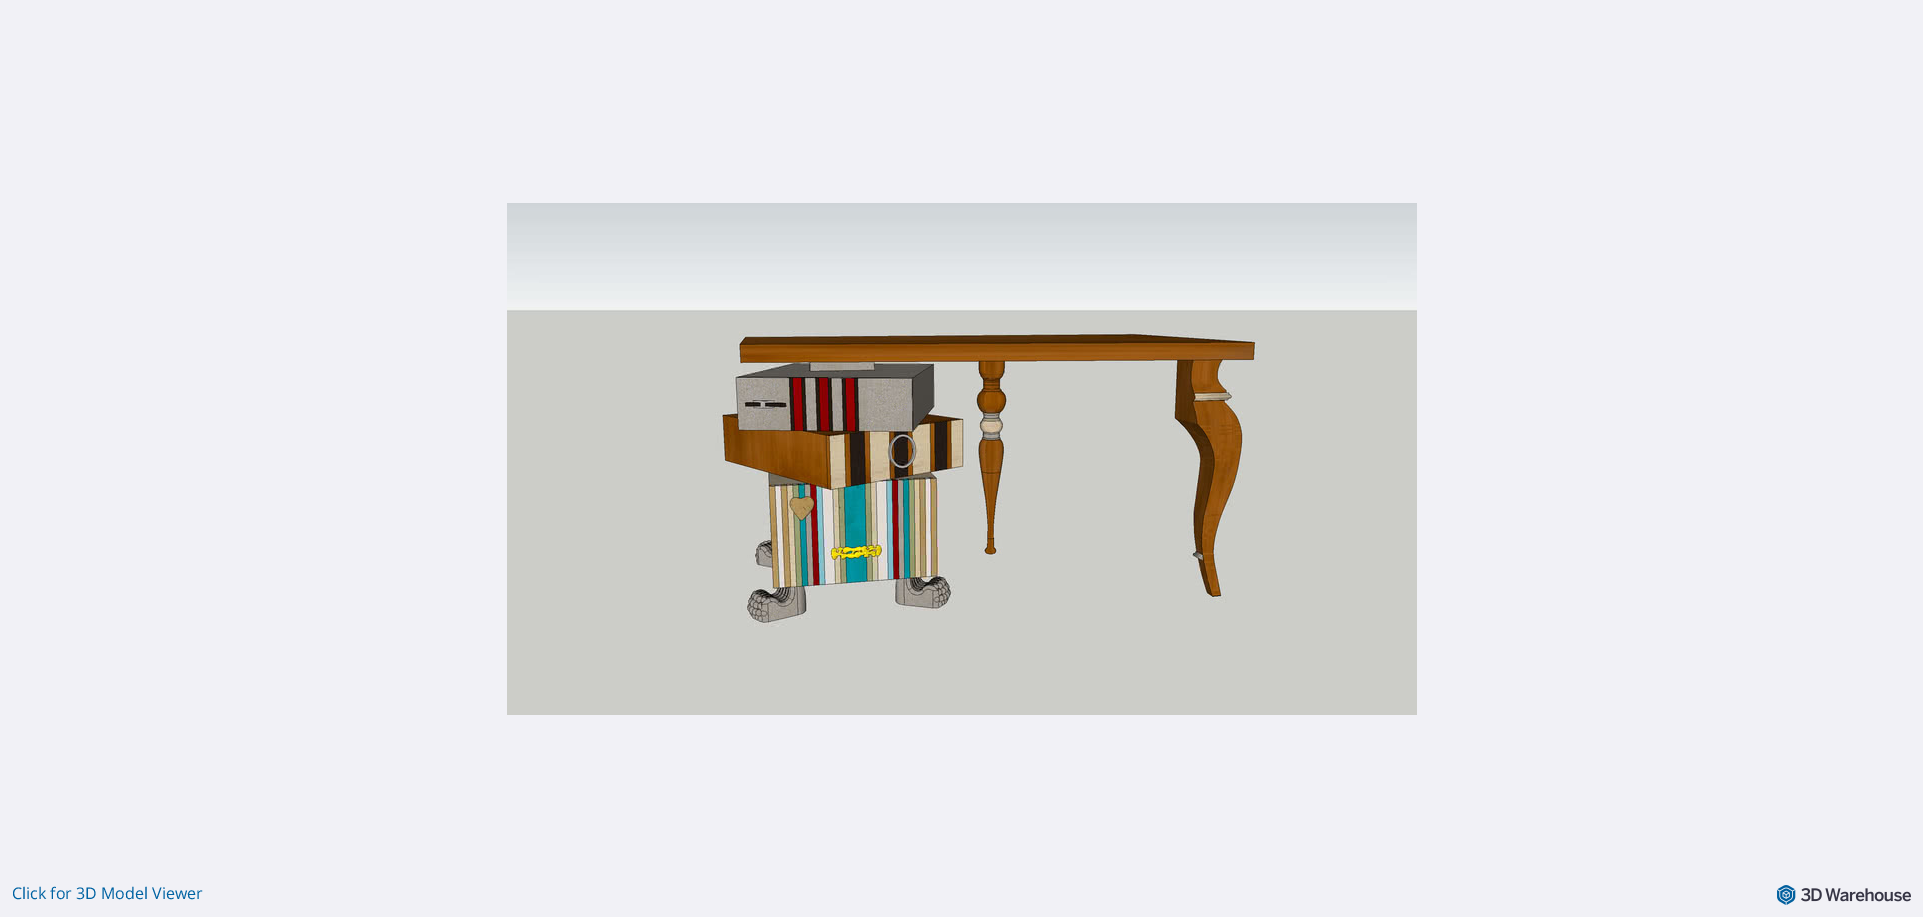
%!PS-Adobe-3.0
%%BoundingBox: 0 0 1923 917
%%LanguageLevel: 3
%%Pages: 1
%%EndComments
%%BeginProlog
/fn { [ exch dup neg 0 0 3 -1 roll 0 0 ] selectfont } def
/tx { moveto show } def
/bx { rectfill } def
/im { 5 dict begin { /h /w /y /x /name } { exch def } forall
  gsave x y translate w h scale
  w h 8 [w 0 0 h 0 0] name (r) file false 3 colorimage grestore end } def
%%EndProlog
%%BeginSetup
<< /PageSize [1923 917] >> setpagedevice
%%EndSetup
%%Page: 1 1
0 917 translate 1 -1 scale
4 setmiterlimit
0.945 0.945 0.965 setrgbcolor
0 0 1923 917 bx
(image0.raw) 507 203 910 512 im
/OpenSans-Regular 16 fn
0 0.388 0.639 setrgbcolor
(Click for 3D Model Viewer) 12 899 tx
(image1.raw) 1777 885 134 20 im
showpage
%%EOF
